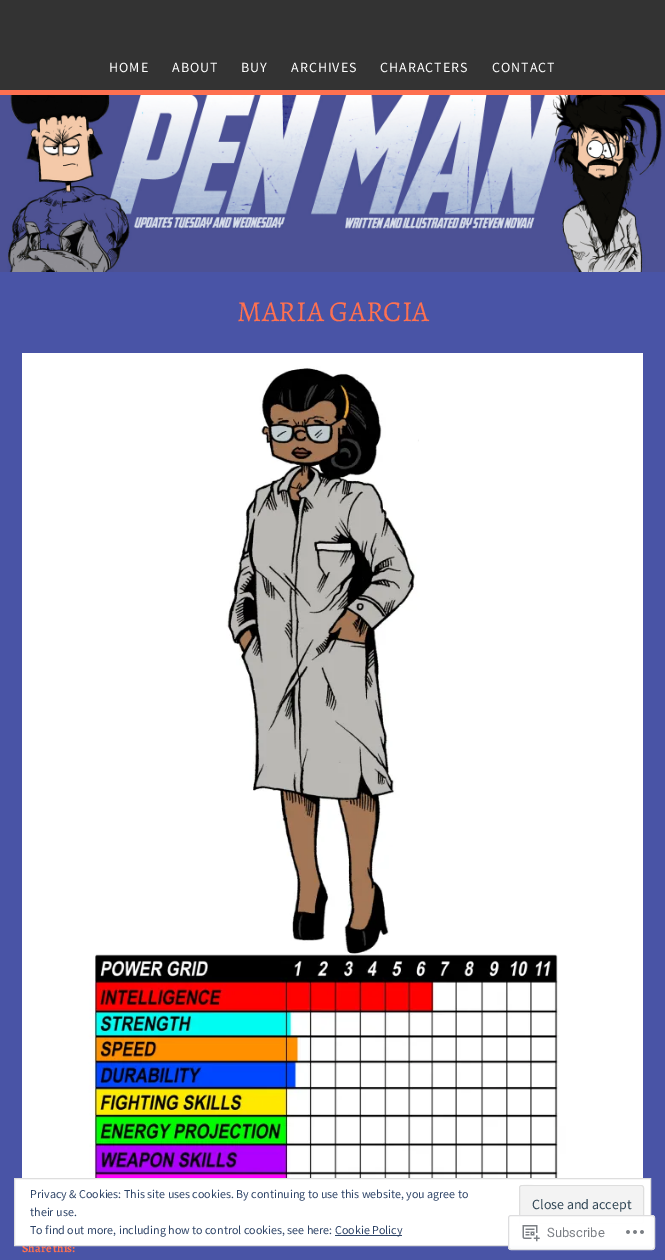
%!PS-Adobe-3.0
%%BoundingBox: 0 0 665 1260
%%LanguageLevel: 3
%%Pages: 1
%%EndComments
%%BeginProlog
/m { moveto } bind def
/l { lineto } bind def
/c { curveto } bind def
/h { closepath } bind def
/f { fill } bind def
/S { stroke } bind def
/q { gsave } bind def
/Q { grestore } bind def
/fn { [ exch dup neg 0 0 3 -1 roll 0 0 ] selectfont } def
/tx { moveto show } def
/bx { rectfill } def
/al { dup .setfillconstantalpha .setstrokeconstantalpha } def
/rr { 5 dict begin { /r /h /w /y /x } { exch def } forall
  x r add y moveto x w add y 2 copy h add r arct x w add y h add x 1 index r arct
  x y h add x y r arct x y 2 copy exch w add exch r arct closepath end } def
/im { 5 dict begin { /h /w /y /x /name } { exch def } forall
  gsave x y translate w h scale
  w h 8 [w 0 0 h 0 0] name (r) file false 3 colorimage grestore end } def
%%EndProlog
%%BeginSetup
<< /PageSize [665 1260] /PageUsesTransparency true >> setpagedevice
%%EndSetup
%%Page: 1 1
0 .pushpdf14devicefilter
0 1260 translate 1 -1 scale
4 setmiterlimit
0.286 0.329 0.651 setrgbcolor
0 0 665 1260 bx
0.2 setgray
0 0 665 90 bx
0.996 0.439 0.314 setrgbcolor
0 90 665 5 bx
/SourceSansPro-Regular 14 fn
1 setgray
109 72 m 1 0 (HOME) ashow
172 72 m 1 0 (ABOUT) ashow
241 72 m 1 0 (BUY) ashow
291 72 m 1 0 (ARCHIVES) ashow
380 72 m 1 0 (CHARACTERS) ashow
492 72 m 1 0 (CONTACT) ashow
(image0.raw) 0 95 665 177 im
/Alegreya-Regular 29 fn
0.996 0.439 0.314 setrgbcolor
(MARIA GARCIA) 237 321 tx
(image1.raw) 22 353 621 825 im
/Alegreya-Bold 12 fn
(Share this:) 22 1252 tx
1 setgray
14.5 1178.5 m 650.5 1178.5 l 650.5 1245.5 l 14.5 1245.5 l h q f Q
0.871 setgray
S
/SourceSansPro-Regular 12 fn
0.18 0.267 0.404 setrgbcolor
(Privacy & Cookies: This site uses cookies. By continuing to use this website, you agree to) 30 1198 tx
(their use.) 30 1216 tx
0.953 setgray
519 1185 125 39 3 rr f
0.976 setgray
522 1187 m 641 1187 l 643 1188 l 643 1189 l 643 1188 643 1187 642 1186 c 542 1186 l 536 1186 520 1181 520 1189 c 520 1188 521 1187 522 1187 c h f
0.871 setgray
519.5 1185.5 124 38 2.5 rr S
/SourceSansPro-Regular 14 fn
0.18 0.267 0.325 setrgbcolor
(Close and accept) 532 1209 tx
/SourceSansPro-Regular 12 fn
0.18 0.267 0.404 setrgbcolor
(To find out more, including how to control cookies, see here:) 30 1234 tx
335 1235 67 1 bx
(Cookie Policy) 335 1234 tx
0.98 al
1 setgray
508 1215 147 35 3 rr f
0.863 0.863 0.871 setrgbcolor
508.5 1215.5 146 34 2.5 rr S
1 al
(image2.raw) 522 1225 18 17 im
/Roboto-Regular 13 fn
0.482 0.498 0.522 setrgbcolor
(Subscribe) 547 1237 tx
(image3.raw) 626 1230 18 4 im
.poppdf14devicefilter showpage
%%EOF
